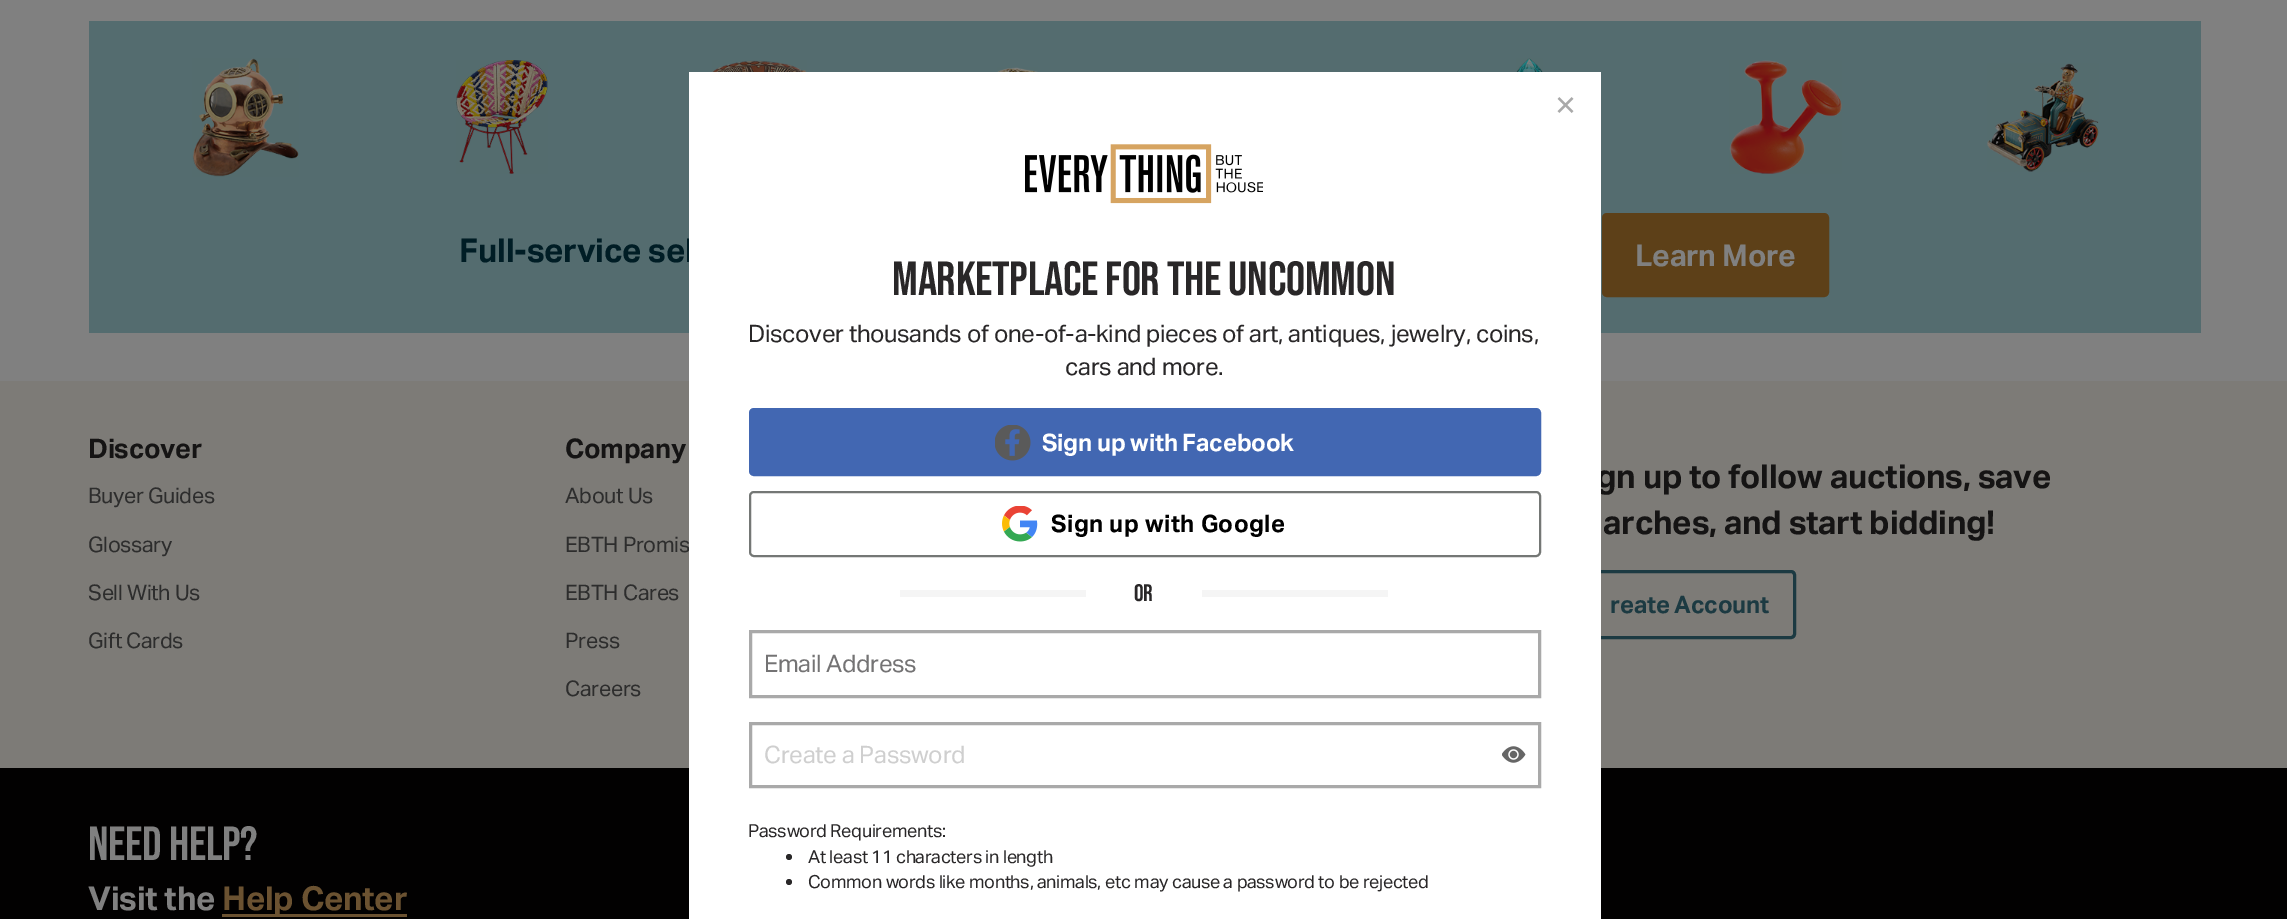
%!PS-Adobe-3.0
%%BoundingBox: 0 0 2287 919
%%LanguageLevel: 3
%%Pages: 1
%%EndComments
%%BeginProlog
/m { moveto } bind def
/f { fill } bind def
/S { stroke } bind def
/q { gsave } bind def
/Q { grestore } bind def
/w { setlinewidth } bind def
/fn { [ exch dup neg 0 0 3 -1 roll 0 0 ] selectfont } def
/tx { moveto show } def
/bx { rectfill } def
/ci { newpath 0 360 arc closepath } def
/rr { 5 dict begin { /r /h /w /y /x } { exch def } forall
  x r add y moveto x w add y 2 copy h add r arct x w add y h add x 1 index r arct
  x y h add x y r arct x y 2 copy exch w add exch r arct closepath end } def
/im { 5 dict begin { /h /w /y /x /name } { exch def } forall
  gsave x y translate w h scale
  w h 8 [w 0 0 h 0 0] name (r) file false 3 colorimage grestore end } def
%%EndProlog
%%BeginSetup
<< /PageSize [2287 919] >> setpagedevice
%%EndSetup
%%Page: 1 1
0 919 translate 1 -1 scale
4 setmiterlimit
0.502 setgray
0 0 2287 919 bx
0.329 0.424 0.435 setrgbcolor
89 21 2112 312 bx
/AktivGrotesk-Bold 33 fn
0 0.114 0.145 setrgbcolor
459 262 m -0.3 0 (Full-service sel) ashow
0.49 0.482 0.467 setrgbcolor
0 381 2287 387 bx
/AktivGrotesk-Regular 21.5 fn
0.176 setgray
565 552 m -0.3 0 (EBTH Promis) ashow
/AktivGrotesk-Bold 33 fn
0.082 0.078 0.078 setrgbcolor
1596 488 m -0.3 0 (gn up to follow auctions, save) ashow
0.11 0.227 0.259 setrgbcolor
3 w
1567.5 571.5 227 66 3.5 rr S
0.008 0.004 0.004 setrgbcolor
0 768 2287 151 bx
1 setgray
689 72 912 847 bx
/LiberationSans-Regular 36 fn
0.663 setgray
(×) 1555 117 tx
(image0.raw) 1025 144 238 60 im
/BebasNeue-Regular 48 fn
0.161 0.153 0.157 setrgbcolor
892 295 m -0.3 0 (MARKETPLACE FOR THE UNCOMMON) ashow
/AktivGrotesk-Regular 24 fn
748 342 m -0.3 0 (Discover thousands of one-of-a-kind pieces of art, antiques, jewelry, coins,) ashow
1065 375 m -0.3 0 (cars and more.) ashow
0.259 0.404 0.698 setrgbcolor
750.5 409.5 789 65 3.5 rr q f Q
S
(image1.raw) 995 425 36 36 im
/AktivGrotesk-Bold 24 fn
1 setgray
1042 451 m -0.3 0 (Sign up with Facebook) ashow
0.455 0.467 0.459 setrgbcolor
2 w
750 492 790 64 4 rr S
(image2.raw) 1002 506 36 36 im
0 setgray
1051 532 m 0.4 0 (Sign up with Google) ashow
0.961 setgray
900 590 186 7 bx
/BebasNeue-Regular 24 fn
0.161 0.153 0.157 setrgbcolor
1134 601 m -0.3 0 (OR) ashow
0.961 setgray
1202 590 186 7 bx
0.663 setgray
3 w
750.5 631.5 789 65 rectstroke
/AktivGrotesk-Regular 24 fn
0.455 0.451 0.455 setrgbcolor
764 672 m -0.3 0 (Email Address) ashow
0.663 setgray
750.5 723.5 789 63 rectstroke
0.812 setgray
764 763 m -0.3 0 (Create a Password) ashow
(image3.raw) 1502 746 24 17 im
/AktivGrotesk-Regular 18 fn
0.161 0.153 0.157 setrgbcolor
748 837 m -0.3 0 (Password Requirements:) ashow
789 857 3 ci f
808 863 m -0.3 0 (At least 11 characters in length) ashow
789 882 3 ci f
808 888 m -0.3 0 (Common words like months, animals, etc may cause a password to be rejected) ashow
(image4.raw) 192 58 107 119 im
(image5.raw) 456 60 92 114 im
(image6.raw) 712 60 95 12 im
(image7.raw) 997 67 41 5 im
(image8.raw) 1516 58 27 14 im
(image9.raw) 1729 60 113 114 im
(image10.raw) 1987 63 112 109 im
0.365 0.251 0.094 setrgbcolor
1603.5 214.5 224 81 3.5 rr q f Q
S
/AktivGrotesk-Bold 30 fn
0.502 setgray
1635 266 m -0.3 0 (Learn More) ashow
/AktivGrotesk-Bold 27 fn
0.082 0.078 0.078 setrgbcolor
88 458 m -0.3 0 (Discover) ashow
/AktivGrotesk-Regular 21.5 fn
0.176 setgray
88 503 m -0.3 0 (Buyer Guides) ashow
88 552 m -0.3 0 (Glossary) ashow
88 600 m -0.3 0 (Sell With Us) ashow
88 648 m -0.3 0 (Gift Cards) ashow
/AktivGrotesk-Bold 27 fn
0.082 0.078 0.078 setrgbcolor
565 458 m -0.3 0 (Company) ashow
/AktivGrotesk-Regular 21.5 fn
0.176 setgray
565 503 m -0.3 0 (About Us) ashow
565 600 m -0.3 0 (EBTH Cares) ashow
565 648 m -0.3 0 (Press) ashow
565 696 m -0.3 0 (Careers) ashow
/AktivGrotesk-Bold 33 fn
0.082 0.078 0.078 setrgbcolor
1603 534 m -0.3 0 (arches, and start bidding!) ashow
/AktivGrotesk-Bold 24 fn
0.11 0.227 0.259 setrgbcolor
1610 613 m -0.3 0 (reate Account) ashow
/BebasNeue-Regular 48 fn
0.502 setgray
88 860 m -0.3 0 (NEED HELP?) ashow
/AktivGrotesk-Bold 33 fn
88 910 m -0.3 0 (Visit the) ashow
0.42 0.322 0.192 setrgbcolor
222 914 185 3 bx
222 910 m -0.3 0 (Help Center) ashow
showpage
%%EOF
